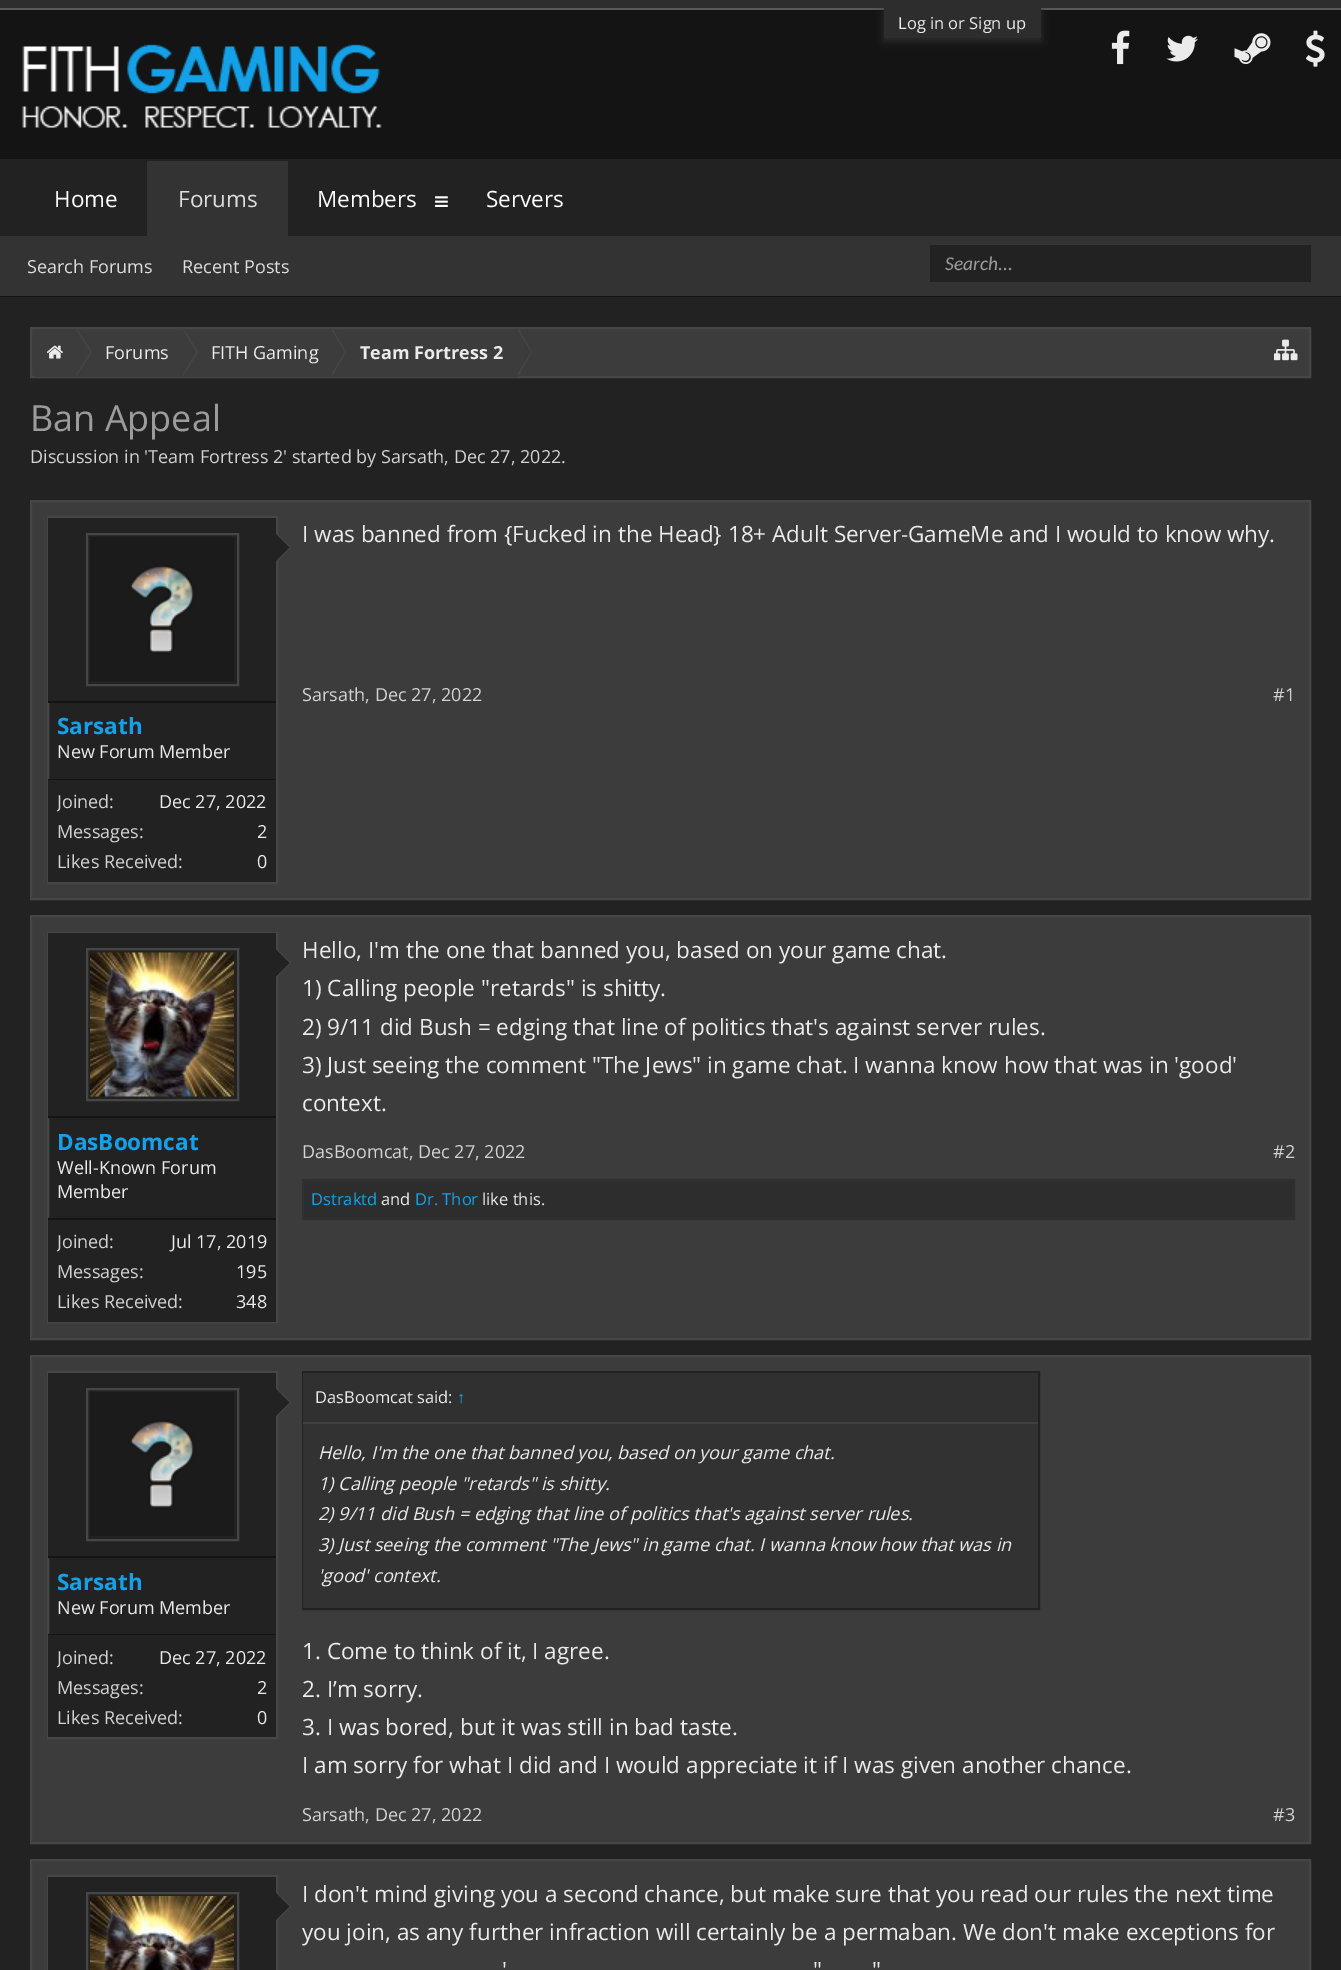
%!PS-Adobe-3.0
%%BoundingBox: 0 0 1341 1970
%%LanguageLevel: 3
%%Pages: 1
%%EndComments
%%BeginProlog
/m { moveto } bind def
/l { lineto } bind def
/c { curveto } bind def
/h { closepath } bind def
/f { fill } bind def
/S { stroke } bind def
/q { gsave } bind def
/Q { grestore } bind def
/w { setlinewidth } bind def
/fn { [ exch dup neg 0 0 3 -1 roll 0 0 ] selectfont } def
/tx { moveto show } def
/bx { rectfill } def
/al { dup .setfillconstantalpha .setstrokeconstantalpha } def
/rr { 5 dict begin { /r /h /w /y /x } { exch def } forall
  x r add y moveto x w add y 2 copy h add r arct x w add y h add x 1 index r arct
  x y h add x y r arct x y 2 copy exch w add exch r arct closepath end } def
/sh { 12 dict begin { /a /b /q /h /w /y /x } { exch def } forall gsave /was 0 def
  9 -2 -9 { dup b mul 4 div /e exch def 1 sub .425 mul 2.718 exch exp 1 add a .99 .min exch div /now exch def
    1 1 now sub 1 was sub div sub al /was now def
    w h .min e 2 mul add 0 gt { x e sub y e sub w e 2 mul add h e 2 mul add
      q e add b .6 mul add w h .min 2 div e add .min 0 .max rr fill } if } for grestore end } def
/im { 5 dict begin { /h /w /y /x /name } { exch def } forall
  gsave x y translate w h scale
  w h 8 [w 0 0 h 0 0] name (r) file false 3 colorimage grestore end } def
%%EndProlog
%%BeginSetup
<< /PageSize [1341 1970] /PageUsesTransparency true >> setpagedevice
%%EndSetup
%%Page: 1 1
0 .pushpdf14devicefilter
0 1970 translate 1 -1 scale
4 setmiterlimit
0.078 setgray
0 0 1341 1970 bx
0.176 setgray
0 0 1341 8 bx
0.345 setgray
0 8 1341 2 bx
0.176 setgray
884 11 157 30 0 4 1 sh
884 8 157 30 bx
/OpenSans-Regular 16.5 fn
0.922 setgray
(Log in or Sign up) 898 29 tx
0.133 setgray
0 159 1341 77 bx
(image0.raw) 22 44 360 84 im
(image1.raw) 1111 30 19 35 im
(image2.raw) 1166 35 32 27 im
(image3.raw) 1234 33 37 32 im
(image4.raw) 1305 30 20 37 im
0.2 setgray
147 161 141 75 bx
/OpenSans-Regular 22.5 fn
0.871 setgray
(Forums) 178 207 tx
0.2 setgray
0 236 1341 60 bx
/OpenSans-Regular 18 fn
0.871 setgray
(Search Forums) 27 273 tx
(Recent Posts) 182 273 tx
/OpenSans-Regular 22.5 fn
1 setgray
(Members) 317 207 tx
(image5.raw) 435 196 13 11 im
(Home) 54 207 tx
(Servers) 486 207 tx
0.133 setgray
930 245 381 37 bx
/Carlito-Italic 19.5 fn
0.612 setgray
(Search...) 945 270 tx
0.133 setgray
0 297 1341 1673 bx
0.235 setgray
31 328 m 1310 328 l 1310 377 l 31 377 l h q f Q
0.275 setgray
2 w
S
q
32 329 1278 48 rectclip
0.235 setgray
40 329 m 78 329 l 78 378 l 40 378 l 35.5 378 32 374.5 32 370 c 32 337 l 32 332.5 35.5 329 40 329 c h f
Q
(image6.raw) 47 345 16 14 im
76 376 m 76 328 l 92 352 l h f
0.235 setgray
75 376 m 75 328 l 90 352 l h f
78 376 441 1 bx
/OpenSans-Regular 18 fn
0.922 setgray
(Forums) 105 359 tx
0.275 setgray
183 376 m 183 328 l 198 352 l h f
0.235 setgray
182 376 m 182 328 l 196 352 l h f
0.922 setgray
(FITH Gaming) 211 359 tx
0.275 setgray
332 376 m 332 328 l 346 352 l h f
0.235 setgray
330 376 m 330 328 l 345 352 l h f
/OpenSans-Bold 18 fn
0.922 setgray
(Team Fortress 2) 360 359 tx
0.275 setgray
518 376 m 518 328 l 532 352 l h f
0.235 setgray
516 376 m 516 328 l 531 352 l h f
(image7.raw) 1274 339 24 22 im
/OpenSans-Regular 36 fn
0.612 setgray
(Ban Appeal) 30 431 tx
/OpenSans-Regular 18 fn
0.827 setgray
(Discussion in 'Team Fortress 2' started by Sarsath, Dec 27, 2022.) 30 463 tx
0.235 setgray
31 501 m 1310 501 l 1310 899 l 31 899 l h q f Q
0.275 setgray
S
/OpenSans-Regular 22.5 fn
0.922 setgray
(I was banned from {Fucked in the Head} 18+ Adult Server-GameMe and I would to know why.) 302 542 tx
/OpenSans-Regular 18 fn
0.827 setgray
(Sarsath, Dec 27, 2022) 302 701 tx
(#1) 1273 701 tx
0.133 setgray
49 703 227 76 bx
0.275 setgray
48 517 229 366 rectstroke
0.133 setgray
48 518 228 183 bx
0.275 setgray
87 534 151 151 rectstroke
(image8.raw) 90 537 144 144 im
276 562.5 m 276 532.5 l 291 547.5 l h f
0.133 setgray
274.5 562.5 m 274.5 532.5 l 289.5 547.5 l h f
0.078 setgray
48 701 228 2 bx
48 779 228 1 bx
/OpenSans-Bold 22.5 fn
0.082 0.631 0.906 setrgbcolor
(Sarsath) 57 734 tx
/OpenSans-Regular 18 fn
0.922 setgray
(New Forum Member) 57 758 tx
0.133 setgray
48 780 228 102 bx
q
57 789 210 27 rectclip
0.827 setgray
(Joined:) 57 808 tx
Q
0.922 setgray
(Dec 27, 2022) 159 808 tx
0.827 setgray
(Messages:) 57 838 tx
0.922 setgray
(2) 257 838 tx
0.827 setgray
(Likes Received:) 57 868 tx
0.922 setgray
(0) 257 868 tx
0.235 setgray
31 916 m 1310 916 l 1310 1339 l 31 1339 l h q f Q
0.275 setgray
S
0.133 setgray
49 1118 227 100 bx
0.275 setgray
48 933 229 389 rectstroke
0.133 setgray
48 933 228 183 bx
0.275 setgray
87 949 151 151 rectstroke
(image9.raw) 90 952 144 145 im
276 978 m 276 948 l 291 963 l h f
0.133 setgray
274.5 978 m 274.5 948 l 289.5 963 l h f
0.078 setgray
48 1116 228 2 bx
48 1218 228 2 bx
/OpenSans-Bold 22.5 fn
0.082 0.631 0.906 setrgbcolor
(DasBoomcat) 57 1150 tx
/OpenSans-Regular 18 fn
0.922 setgray
(Well-Known Forum) 57 1174 tx
(Member) 57 1198 tx
0.133 setgray
48 1220 228 102 bx
q
57 1229 210 27 rectclip
0.827 setgray
(Joined:) 57 1248 tx
Q
0.922 setgray
(Jul 17, 2019) 171 1248 tx
0.827 setgray
(Messages:) 57 1278 tx
0.922 setgray
(195) 236 1278 tx
0.827 setgray
(Likes Received:) 57 1308 tx
0.922 setgray
(348) 236 1308 tx
/OpenSans-Regular 22.5 fn
(Hello, I'm the one that banned you, based on your game chat.) 302 958 tx
(1\) Calling people "retards" is shitty.) 302 996 tx
(2\) 9/11 did Bush = edging that line of politics that's against server rules.) 302 1035 tx
(3\) Just seeing the comment "The Jews" in game chat. I wanna know how that was in 'good') 302 1073 tx
(context.) 302 1111 tx
/OpenSans-Regular 18 fn
0.827 setgray
(DasBoomcat, Dec 27, 2022) 302 1158 tx
(#2) 1273 1158 tx
0.176 setgray
303 1180 m 1294 1180 l 1294 1219 l 303 1219 l h q f Q
0.188 setgray
S
/OpenSans-Regular 16.5 fn
0.082 0.631 0.906 setrgbcolor
(Dstraktd) 311 1205 tx
0.922 setgray
(and) 381 1205 tx
0.082 0.631 0.906 setrgbcolor
(Dr. Thor) 415 1205 tx
0.922 setgray
(like this.) 482 1205 tx
0.235 setgray
31 1356 m 1310 1356 l 1310 1843 l 31 1843 l h q f Q
0.275 setgray
S
0.133 setgray
49 1558 227 76 bx
0.275 setgray
48 1372 229 366 rectstroke
0.133 setgray
48 1373 228 183 bx
0.275 setgray
87 1389 151 151 rectstroke
(image8.raw) 90 1392 144 144 im
276 1417.5 m 276 1387.5 l 291 1402.5 l h f
0.133 setgray
274.5 1417.5 m 274.5 1387.5 l 289.5 1402.5 l h f
0.078 setgray
48 1556 228 2 bx
48 1634 228 1 bx
/OpenSans-Bold 22.5 fn
0.082 0.631 0.906 setrgbcolor
(Sarsath) 57 1590 tx
/OpenSans-Regular 18 fn
0.922 setgray
(New Forum Member) 57 1614 tx
0.133 setgray
48 1635 228 102 bx
q
57 1644 210 27 rectclip
0.827 setgray
(Joined:) 57 1664 tx
Q
0.922 setgray
(Dec 27, 2022) 159 1664 tx
0.827 setgray
(Messages:) 57 1694 tx
0.922 setgray
(2) 257 1694 tx
0.827 setgray
(Likes Received:) 57 1724 tx
0.922 setgray
(0) 257 1724 tx
0.133 setgray
303 1372 736 237 rectstroke
0.188 setgray
303 1373 735 49 bx
0.251 setgray
303 1422 735 2 bx
/OpenSans-Regular 16.5 fn
0.922 setgray
(DasBoomcat said:) 315 1403 tx
/LiberationSans-Regular 16.5 fn
0.082 0.631 0.906 setrgbcolor
(↑) 457 1403 tx
0.2 0.196 0.196 setrgbcolor
303 1424 735 184 bx
/OpenSans-Italic 18 fn
0.922 setgray
(Hello, I'm the one that banned you, based on your game chat.) 318 1459 tx
(1\) Calling people "retards" is shitty.) 318 1490 tx
(2\) 9/11 did Bush = edging that line of politics that's against server rules.) 318 1520 tx
(3\) Just seeing the comment "The Jews" in game chat. I wanna know how that was in) 318 1551 tx
('good' context.) 318 1582 tx
/OpenSans-Regular 22.5 fn
(1. Come to think of it, I agree.) 302 1659 tx
(2. I’m sorry.) 302 1697 tx
(3. I was bored, but it was still in bad taste.) 302 1735 tx
(I am sorry for what I did and I would appreciate it if I was given another chance.) 302 1773 tx
/OpenSans-Regular 18 fn
0.827 setgray
(Sarsath, Dec 27, 2022) 302 1821 tx
(#3) 1273 1821 tx
0.235 setgray
31 1860 m 1310 1860 l 1310 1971 l 31 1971 l h q f Q
0.275 setgray
S
48 1876 229 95 rectstroke
0.133 setgray
48 1877 228 93 bx
0.275 setgray
87 1893 151 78 rectstroke
(image10.raw) 90 1896 144 74 im
276 1921.5 m 276 1891.5 l 291 1906.5 l h f
0.133 setgray
274.5 1921.5 m 274.5 1891.5 l 289.5 1906.5 l h f
/OpenSans-Regular 22.5 fn
0.922 setgray
(I don't mind giving you a second chance, but make sure that you read our rules the next time) 302 1902 tx
q
302 1875 993 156 rectclip
(you join, as any further infraction will certainly be a permaban. We don't make exceptions for) 302 1940 tx
Q
(') 502 1978 tx
(") 813 1978 tx
(") 872 1978 tx
.poppdf14devicefilter showpage
%%EOF
